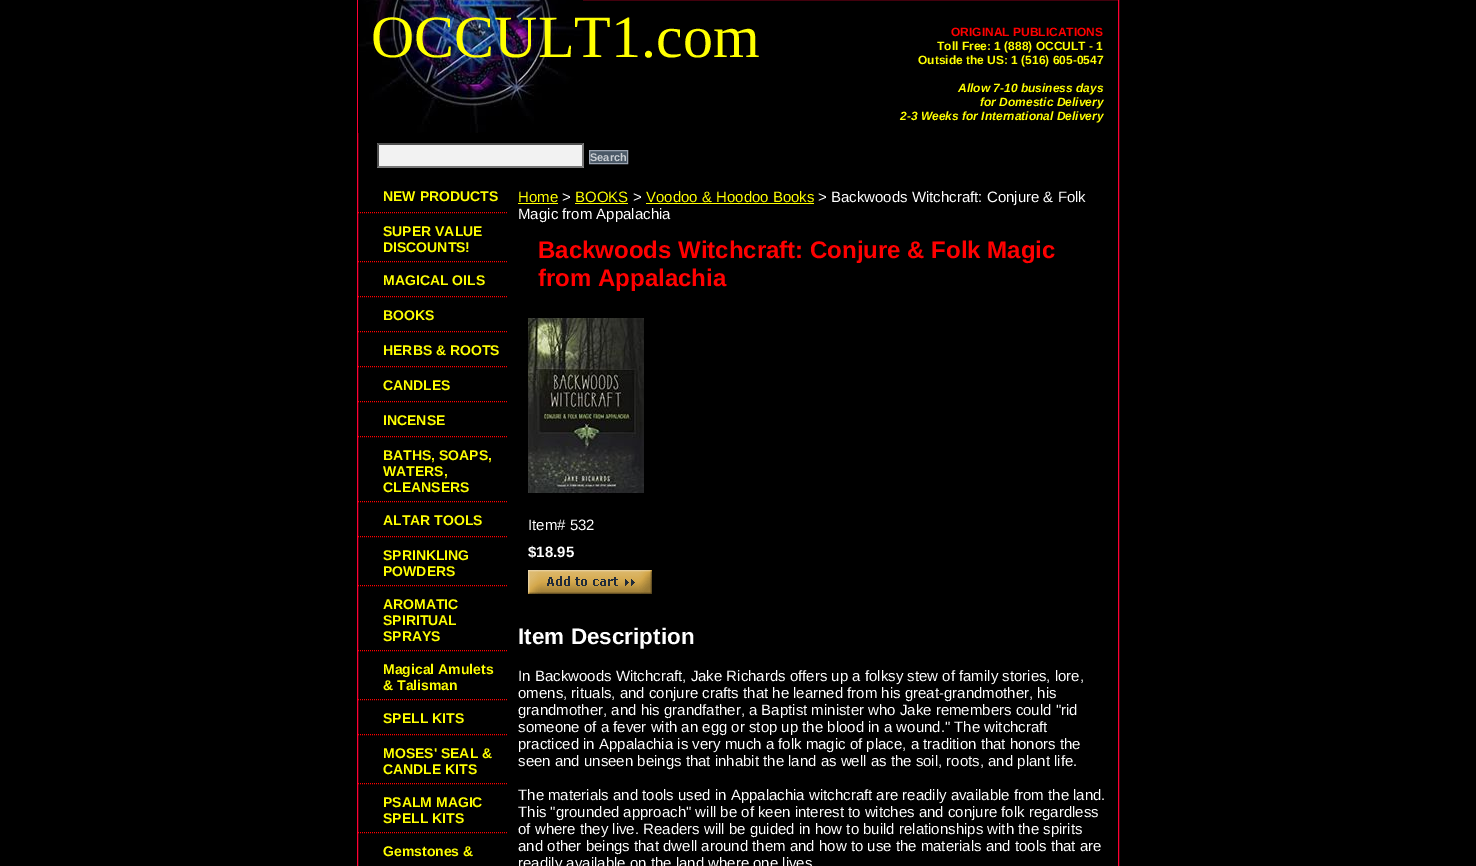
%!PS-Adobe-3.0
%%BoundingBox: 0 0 1476 866
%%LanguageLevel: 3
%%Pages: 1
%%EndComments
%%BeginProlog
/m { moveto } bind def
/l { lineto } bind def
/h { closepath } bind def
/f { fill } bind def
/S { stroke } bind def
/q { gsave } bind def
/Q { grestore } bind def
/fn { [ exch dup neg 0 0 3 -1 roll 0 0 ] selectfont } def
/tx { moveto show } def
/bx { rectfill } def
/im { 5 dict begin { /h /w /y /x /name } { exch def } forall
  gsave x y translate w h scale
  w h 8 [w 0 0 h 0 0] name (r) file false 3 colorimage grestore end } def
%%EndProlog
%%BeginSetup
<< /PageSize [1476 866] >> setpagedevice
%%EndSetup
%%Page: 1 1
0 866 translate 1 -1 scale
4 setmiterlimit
0 setgray
0 0 1476 866 bx
1 0 0.2 setrgbcolor
357.5 -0.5 761 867 rectstroke
(image0.raw) 358 0 225 133 im
/LiberationSerif-Regular 60 fn
1 1 0 setrgbcolor
(OCCULT1.com) 371 57 tx
/LiberationSans-Bold 12 fn
1 0 0 setrgbcolor
(ORIGINAL PUBLICATIONS) 951 36 tx
1 1 0 setrgbcolor
(Toll Free: 1 \(888\) OCCULT - 1) 937 50 tx
(Outside the US: 1 \(516\) 605-0547) 918 64 tx
/LiberationSans-BoldItalic 12 fn
(Allow 7-10 business days) 958 92 tx
(for Domestic Delivery) 980 106 tx
(2-3 Weeks for International Delivery) 900 120 tx
0.949 setgray
377 143 207 25 bx
0.31 setgray
377 143 m 584 143 l 582 145 l 379 145 l h f
0.463 setgray
584 143 m 584 168 l 582 166 l 582 145 l h f
584 168 m 377 168 l 379 166 l 582 166 l h f
0.31 setgray
377 168 m 377 143 l 379 145 l 379 166 l h f
0.294 0.349 0.404 setrgbcolor
589.5 150.5 m 627.5 150.5 l 627.5 163.5 l 589.5 163.5 l h q f Q
0.612 0.647 0.698 setrgbcolor
S
/LiberationSans-Bold 11 fn
0.792 0.808 0.827 setrgbcolor
(Search) 590 161 tx
1 0 0 setrgbcolor
[1 1] 0 setdash
358 212.5 m 508 212.5 l S
/LiberationSans-Bold 14 fn
1 1 0 setrgbcolor
(NEW PRODUCTS) 383 201 tx
1 0 0 setrgbcolor
358 261.5 m 508 261.5 l S
1 1 0 setrgbcolor
(SUPER VALUE) 383 236 tx
(DISCOUNTS!) 383 252 tx
1 0 0 setrgbcolor
358 296.5 m 508 296.5 l S
1 1 0 setrgbcolor
(MAGICAL OILS) 383 285 tx
1 0 0 setrgbcolor
358 331.5 m 508 331.5 l S
1 1 0 setrgbcolor
(BOOKS) 383 320 tx
1 0 0 setrgbcolor
358 366.5 m 508 366.5 l S
1 1 0 setrgbcolor
(HERBS & ROOTS) 383 355 tx
1 0 0 setrgbcolor
358 401.5 m 508 401.5 l S
1 1 0 setrgbcolor
(CANDLES) 383 390 tx
1 0 0 setrgbcolor
358 436.5 m 508 436.5 l S
1 1 0 setrgbcolor
(INCENSE) 383 425 tx
1 0 0 setrgbcolor
358 501.5 m 508 501.5 l S
1 1 0 setrgbcolor
(BATHS, SOAPS,) 383 460 tx
(WATERS,) 383 476 tx
(CLEANSERS) 383 492 tx
1 0 0 setrgbcolor
358 536.5 m 508 536.5 l S
1 1 0 setrgbcolor
(ALTAR TOOLS) 383 525 tx
1 0 0 setrgbcolor
358 585.5 m 508 585.5 l S
1 1 0 setrgbcolor
(SPRINKLING) 383 560 tx
(POWDERS) 383 576 tx
1 0 0 setrgbcolor
358 650.5 m 508 650.5 l S
1 1 0 setrgbcolor
(AROMATIC) 383 609 tx
(SPIRITUAL) 383 625 tx
(SPRAYS) 383 641 tx
1 0 0 setrgbcolor
358 699.5 m 508 699.5 l S
1 1 0 setrgbcolor
(Magical Amulets) 383 674 tx
(& Talisman) 383 690 tx
1 0 0 setrgbcolor
358 734.5 m 508 734.5 l S
1 1 0 setrgbcolor
(SPELL KITS) 383 723 tx
1 0 0 setrgbcolor
358 783.5 m 508 783.5 l S
1 1 0 setrgbcolor
(MOSES' SEAL &) 383 758 tx
(CANDLE KITS) 383 774 tx
1 0 0 setrgbcolor
358 832.5 m 508 832.5 l S
1 1 0 setrgbcolor
(PSALM MAGIC) 383 807 tx
(SPELL KITS) 383 823 tx
(Gemstones &) 383 856 tx
/LiberationSans-Regular 15 fn
(Home) 518 202 tx
518 203 40 1 bx
1 setgray
(>) 562 202 tx
1 1 0 setrgbcolor
(BOOKS) 575 202 tx
575 203 53 1 bx
1 setgray
(>) 633 202 tx
1 1 0 setrgbcolor
(Voodoo & Hoodoo Books) 646 202 tx
646 203 168 1 bx
1 setgray
(> Backwoods Witchcraft: Conjure & Folk) 818 202 tx
(Magic from Appalachia) 518 219 tx
/LiberationSans-Bold 24 fn
1 0 0 setrgbcolor
(Backwoods Witchcraft: Conjure & Folk Magic) 538 258 tx
(from Appalachia) 538 286 tx
(image1.raw) 528 318 116 175 im
/LiberationSans-Regular 15 fn
1 setgray
(Item# 532) 528 530 tx
/LiberationSans-Bold 15 fn
($18.95) 528 557 tx
(image2.raw) 528 570 124 24 im
/LiberationSans-Bold 22.5 fn
(Item Description) 518 644 tx
/LiberationSans-Regular 15 fn
(In Backwoods Witchcraft, Jake Richards offers up a folksy stew of family stories, lore,) 518 681 tx
(omens, rituals, and conjure crafts that he learned from his great-grandmother, his) 518 698 tx
(grandmother, and his grandfather, a Baptist minister who Jake remembers could "rid) 518 715 tx
(someone of a fever with an egg or stop up the blood in a wound." The witchcraft) 518 732 tx
(practiced in Appalachia is very much a folk magic of place, a tradition that honors the) 518 749 tx
(seen and unseen beings that inhabit the land as well as the soil, roots, and plant life.) 518 766 tx
(The materials and tools used in Appalachia witchcraft are readily available from the land.) 518 800 tx
(This "grounded approach" will be of keen interest to witches and conjure folk regardless) 518 817 tx
(of where they live. Readers will be guided in how to build relationships with the spirits) 518 834 tx
(and other beings that dwell around them and how to use the materials and tools that are) 518 851 tx
(readily available on the land where one lives) 518 868 tx
showpage
%%EOF
